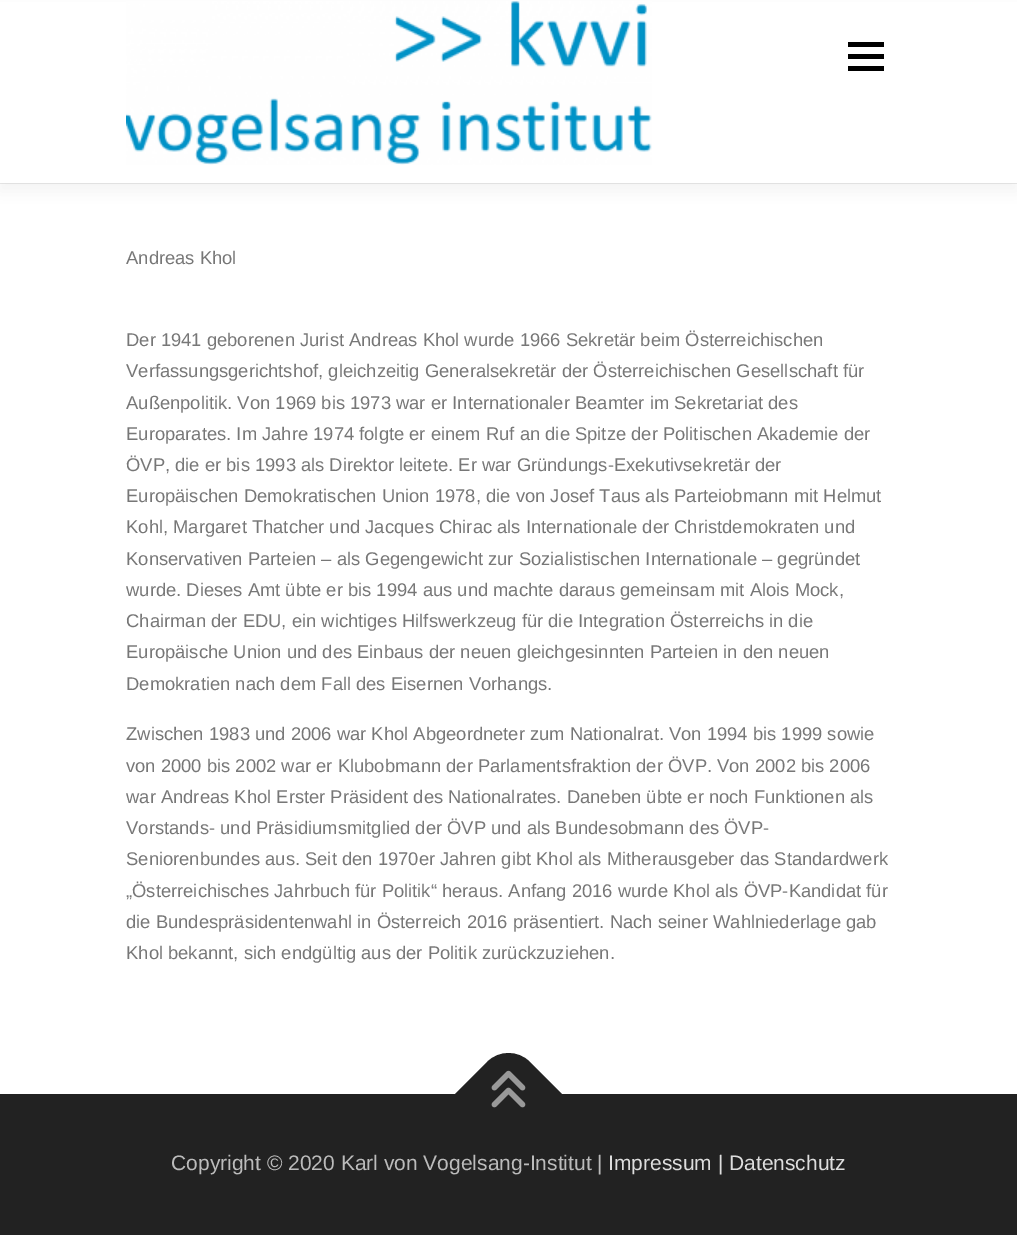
%!PS-Adobe-3.0
%%BoundingBox: 0 0 1017 1236
%%LanguageLevel: 3
%%Pages: 1
%%EndComments
%%BeginProlog
/m { moveto } bind def
/l { lineto } bind def
/c { curveto } bind def
/h { closepath } bind def
/f { fill } bind def
/fn { [ exch dup neg 0 0 3 -1 roll 0 0 ] selectfont } def
/tx { moveto show } def
/bx { rectfill } def
/al { dup .setfillconstantalpha .setstrokeconstantalpha } def
/rr { 5 dict begin { /r /h /w /y /x } { exch def } forall
  x r add y moveto x w add y 2 copy h add r arct x w add y h add x 1 index r arct
  x y h add x y r arct x y 2 copy exch w add exch r arct closepath end } def
/sh { 12 dict begin { /a /b /q /h /w /y /x } { exch def } forall gsave /was 0 def
  9 -2 -9 { dup b mul 4 div /e exch def 1 sub .425 mul 2.718 exch exp 1 add a .99 .min exch div /now exch def
    1 1 now sub 1 was sub div sub al /was now def
    w h .min e 2 mul add 0 gt { x e sub y e sub w e 2 mul add h e 2 mul add
      q e add b .6 mul add w h .min 2 div e add .min 0 .max rr fill } if } for grestore end } def
/im { 5 dict begin { /h /w /y /x /name } { exch def } forall
  gsave x y translate w h scale
  w h 8 [w 0 0 h 0 0] name (r) file false 3 colorimage grestore end } def
%%EndProlog
%%BeginSetup
<< /PageSize [1017 1236] /PageUsesTransparency true >> setpagedevice
%%EndSetup
%%Page: 1 1
0 .pushpdf14devicefilter
0 1236 translate 1 -1 scale
4 setmiterlimit
1 setgray
0 0 1017 1236 bx
0.914 setgray
0 183 1017 1 bx
0.196 setgray
0 8 1017 183 0 7.5 0.06 sh
1 setgray
0 2 1017 181 bx
(image0.raw) 126 1 526 164 im
0 setgray
848 54 36 5 bx
848 42 36 5 bx
848 66 36 5 bx
/LiberationSans-Regular 18.4 fn
0.467 setgray
(Andreas Khol) 126 264 tx
(Der 1941 geborenen Jurist Andreas Khol wurde 1966 Sekretär beim Österreichischen) 126 346 tx
(Verfassungsgerichtshof, gleichzeitig Generalsekretär der Österreichischen Gesellschaft für) 126 377 tx
(Außenpolitik. Von 1969 bis 1973 war er Internationaler Beamter im Sekretariat des) 126 409 tx
(Europarates. Im Jahre 1974 folgte er einem Ruf an die Spitze der Politischen Akademie der) 126 440 tx
(ÖVP, die er bis 1993 als Direktor leitete. Er war Gründungs-Exekutivsekretär der) 126 471 tx
(Europäischen Demokratischen Union 1978, die von Josef Taus als Parteiobmann mit Helmut) 126 502 tx
(Kohl, Margaret Thatcher und Jacques Chirac als Internationale der Christdemokraten und) 126 533 tx
(Konservativen Parteien – als Gegengewicht zur Sozialistischen Internationale – gegründet) 126 565 tx
(wurde. Dieses Amt übte er bis 1994 aus und machte daraus gemeinsam mit Alois Mock,) 126 596 tx
(Chairman der EDU, ein wichtiges Hilfswerkzeug für die Integration Österreichs in die) 126 627 tx
(Europäische Union und des Einbaus der neuen gleichgesinnten Parteien in den neuen) 126 658 tx
(Demokratien nach dem Fall des Eisernen Vorhangs.) 126 690 tx
(Zwischen 1983 und 2006 war Khol Abgeordneter zum Nationalrat. Von 1994 bis 1999 sowie) 126 740 tx
(von 2000 bis 2002 war er Klubobmann der Parlamentsfraktion der ÖVP. Von 2002 bis 2006) 126 772 tx
(war Andreas Khol Erster Präsident des Nationalrates. Daneben übte er noch Funktionen als) 126 803 tx
(Vorstands- und Präsidiumsmitglied der ÖVP und als Bundesobmann des ÖVP-) 126 834 tx
(Seniorenbundes aus. Seit den 1970er Jahren gibt Khol als Mitherausgeber das Standardwerk) 126 865 tx
(„Österreichisches Jahrbuch für Politik“ heraus. Anfang 2016 wurde Khol als ÖVP-Kandidat für) 126 897 tx
(die Bundespräsidentenwahl in Österreich 2016 präsentiert. Nach seiner Wahlniederlage gab) 126 928 tx
(Khol bekannt, sich endgültig aus der Politik zurückzuziehen.) 126 959 tx
0.133 setgray
0 1094 1017 141 bx
455 1094 m 487 1062 l 499 1050 518 1050 530 1062 c 562 1094 l 508 1147 l h f
(image1.raw) 491 1070 35 38 im
/LiberationSans-Regular 21 fn
0.733 setgray
(Copyright © 2020 Karl von Vogelsang-Institut |) 171 1170 tx
0.867 setgray
(Impressum | Datenschutz) 608 1170 tx
.poppdf14devicefilter showpage
%%EOF
